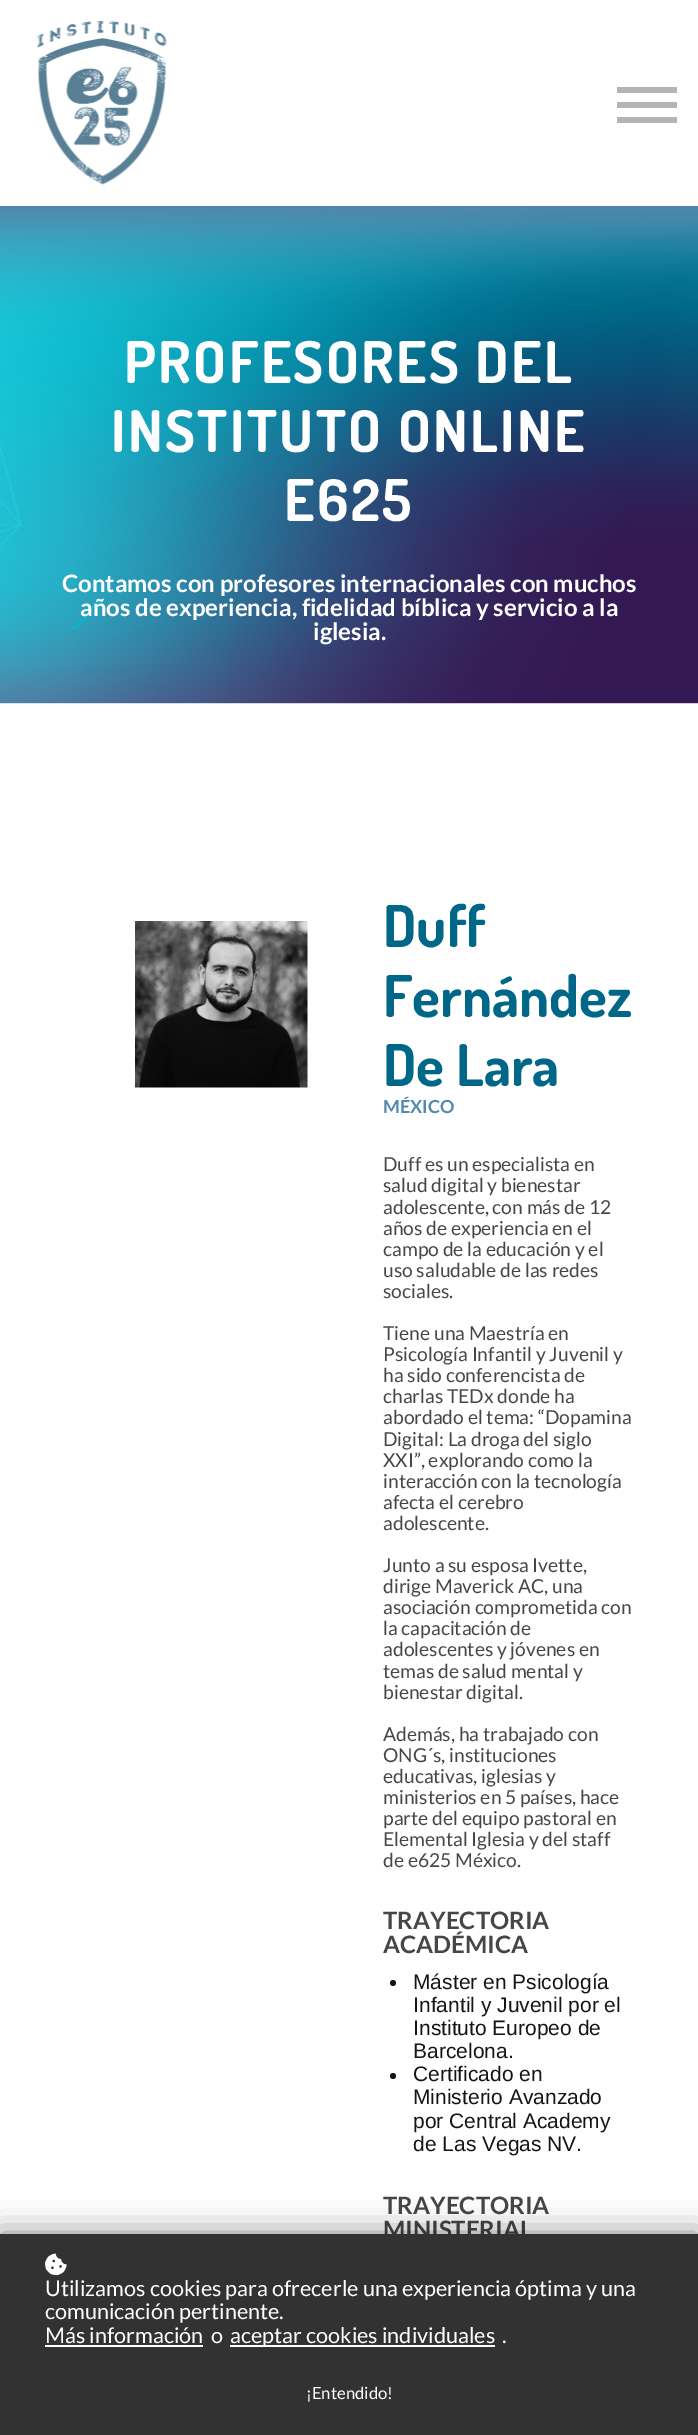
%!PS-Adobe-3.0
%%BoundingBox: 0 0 698 2435
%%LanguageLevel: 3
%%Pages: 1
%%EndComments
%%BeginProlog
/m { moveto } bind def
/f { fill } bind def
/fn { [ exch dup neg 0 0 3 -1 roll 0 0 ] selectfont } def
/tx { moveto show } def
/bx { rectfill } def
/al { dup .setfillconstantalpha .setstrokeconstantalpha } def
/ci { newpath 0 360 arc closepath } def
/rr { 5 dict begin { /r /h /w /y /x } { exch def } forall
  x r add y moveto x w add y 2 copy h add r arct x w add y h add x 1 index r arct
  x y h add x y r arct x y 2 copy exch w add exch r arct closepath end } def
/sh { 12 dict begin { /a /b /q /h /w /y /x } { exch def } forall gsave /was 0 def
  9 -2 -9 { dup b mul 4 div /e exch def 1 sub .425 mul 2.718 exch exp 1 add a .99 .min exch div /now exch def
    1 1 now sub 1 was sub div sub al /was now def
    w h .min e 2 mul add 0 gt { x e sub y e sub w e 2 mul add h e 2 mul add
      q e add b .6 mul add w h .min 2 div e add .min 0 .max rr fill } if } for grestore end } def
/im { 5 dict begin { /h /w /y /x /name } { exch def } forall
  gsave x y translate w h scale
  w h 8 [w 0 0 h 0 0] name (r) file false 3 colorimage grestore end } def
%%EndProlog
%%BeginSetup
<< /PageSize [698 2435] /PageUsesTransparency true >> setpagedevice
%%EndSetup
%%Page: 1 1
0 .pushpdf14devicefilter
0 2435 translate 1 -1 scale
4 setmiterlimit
1 setgray
0 0 698 2435 bx
(image1.raw) 0 206 698 498 im
0 setgray
0 0 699 206 0 11 0.05 sh
1 setgray
0 0 698 206 bx
(image0.raw) 37 21 130 164 im
0.706 setgray
617 117 60 6 bx
617 87 60 6 bx
617 102 60 6 bx
/Dosis-Bold 57.5 fn
1 setgray
124 383 m 2.4 0 (PROFESORES DEL) ashow
111 452 m 2.4 0 (INSTITUTO ONLINE) ashow
284 521 m 2.4 0 (E625) ashow
/Lato-Bold 24 fn
(Contamos con profesores internacionales con muchos) 62 592 tx
(años de experiencia, fidelidad bíblica y servicio a la) 80 616 tx
(iglesia.) 313 640 tx
(image2.raw) 135 921 173 167 im
/Dosis-Bold 57.5 fn
0 0.404 0.533 setrgbcolor
(Duff) 383 947 tx
(Fernández) 383 1017 tx
(De Lara) 383 1086 tx
/Lato-Bold 18 fn
0.325 0.545 0.682 setrgbcolor
(MÉXICO) 383 1113 tx
/Lato-Regular 19.25 fn
0.275 setgray
(Duff es un especialista en) 383 1171 tx
(salud digital y bienestar) 383 1192 tx
(adolescente, con más de 12) 383 1214 tx
(años de experiencia en el) 383 1235 tx
(campo de la educación y el) 383 1256 tx
(uso saludable de las redes) 383 1277 tx
(sociales.) 383 1298 tx
(Tiene una Maestría en) 383 1340 tx
(Psicología Infantil y Juvenil y) 383 1361 tx
(ha sido conferencista de) 383 1382 tx
(charlas TEDx donde ha) 383 1403 tx
(abordado el tema: “Dopamina) 383 1424 tx
(Digital: La droga del siglo) 383 1446 tx
(XXI”, explorando como la) 383 1467 tx
(interacción con la tecnología) 383 1488 tx
(afecta el cerebro) 383 1509 tx
(adolescente.) 383 1530 tx
(Junto a su esposa Ivette,) 383 1572 tx
(dirige Maverick AC, una) 383 1593 tx
(asociación comprometida con) 383 1614 tx
(la capacitación de) 383 1635 tx
(adolescentes y jóvenes en) 383 1656 tx
(temas de salud mental y) 383 1678 tx
(bienestar digital.) 383 1699 tx
(Además, ha trabajado con) 383 1741 tx
(ONG´s, instituciones) 383 1762 tx
(educativas, iglesias y) 383 1783 tx
(ministerios en 5 países, hace) 383 1804 tx
(parte del equipo pastoral en) 383 1825 tx
(Elemental Iglesia y del staff) 383 1846 tx
(de e625 México.) 383 1867 tx
/Lato-Bold 24 fn
(TRAYECTORIA) 383 1929 tx
(ACADÉMICA) 383 1953 tx
0.082 setgray
393 1983 3 ci f
/LiberationSans-Regular 21 fn
(Máster en Psicología) 413 1989 tx
(Infantil y Juvenil por el) 413 2012 tx
(Instituto Europeo de) 413 2035 tx
(Barcelona.) 413 2058 tx
393 2076 3 ci f
(Certificado en) 413 2081 tx
(Ministerio Avanzado) 413 2104 tx
(por Central Academy) 413 2128 tx
(de Las Vegas NV.) 413 2151 tx
/Lato-Bold 24 fn
0.275 setgray
(TRAYECTORIA) 383 2214 tx
(MINISTERIAL) 383 2238 tx
0 setgray
0 2234 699 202 0 15 0.5 sh
0.196 setgray
0 2234 698 201 bx
(image3.raw) 45 2253 22 23 im
/Lato-Regular 21.6 fn
1 setgray
(Utilizamos cookies para ofrecerle una experiencia óptima y una) 45 2296 tx
(comunicación pertinente.) 45 2319 tx
(Más información) 45 2343 tx
45 2345 158 2 bx
(o) 211 2343 tx
230 2345 265 2 bx
(aceptar cookies individuales) 230 2343 tx
(.) 502 2343 tx
/Lato-Regular 16.75 fn
(¡Entendido!) 306 2399 tx
.poppdf14devicefilter showpage
%%EOF
